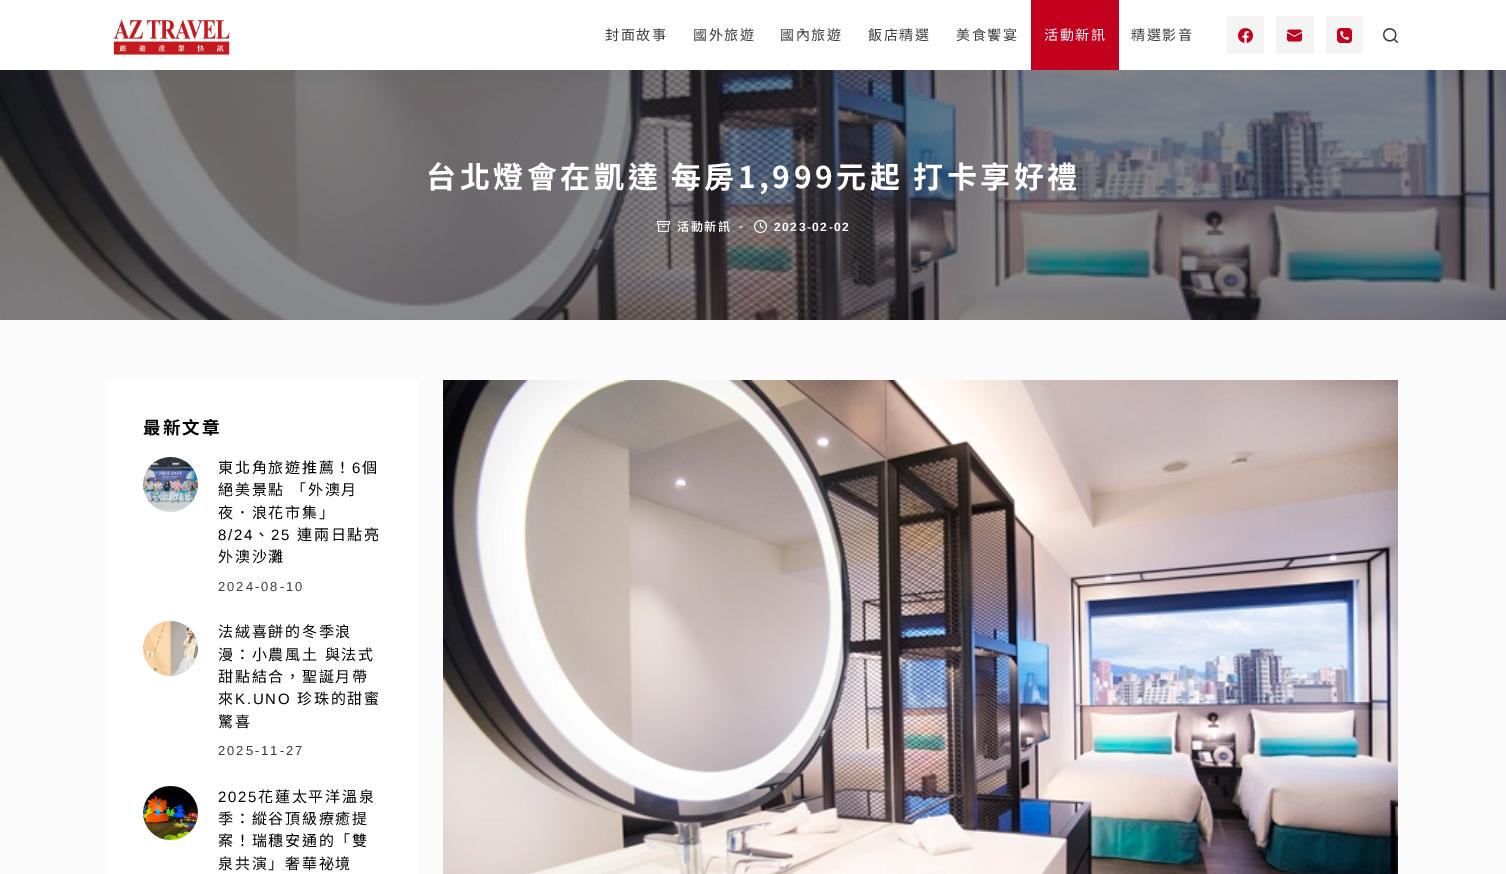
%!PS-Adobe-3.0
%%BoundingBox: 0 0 1506 874
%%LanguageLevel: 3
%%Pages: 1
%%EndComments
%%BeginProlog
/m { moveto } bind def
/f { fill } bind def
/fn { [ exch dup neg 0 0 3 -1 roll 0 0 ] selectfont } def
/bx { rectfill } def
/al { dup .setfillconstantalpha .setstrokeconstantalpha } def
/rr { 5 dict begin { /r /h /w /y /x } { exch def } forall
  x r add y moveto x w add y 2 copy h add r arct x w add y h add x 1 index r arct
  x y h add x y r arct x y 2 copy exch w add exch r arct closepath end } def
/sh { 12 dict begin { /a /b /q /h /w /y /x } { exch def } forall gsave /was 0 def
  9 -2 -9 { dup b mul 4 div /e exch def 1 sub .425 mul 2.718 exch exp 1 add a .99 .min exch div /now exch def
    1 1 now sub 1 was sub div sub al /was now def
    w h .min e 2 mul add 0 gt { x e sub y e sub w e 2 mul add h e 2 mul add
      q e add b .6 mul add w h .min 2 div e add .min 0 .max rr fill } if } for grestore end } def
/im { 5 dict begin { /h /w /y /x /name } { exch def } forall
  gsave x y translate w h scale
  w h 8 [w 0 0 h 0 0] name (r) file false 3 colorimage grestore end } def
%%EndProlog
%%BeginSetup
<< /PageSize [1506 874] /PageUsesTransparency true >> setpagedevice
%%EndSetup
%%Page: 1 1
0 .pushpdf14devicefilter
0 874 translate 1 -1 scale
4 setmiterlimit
0.984 setgray
0 0 1506 874 bx
(image5.raw) 0 70 1506 250 im
0.173 0.243 0.314 setrgbcolor
0 10 1506 70 0 10 0.05 sh
1 setgray
0 0 1506 70 bx
(image0.raw) 113 19 117 36 im
/NotoSansCJKTC-Regular 14 fn
0.243 0.227 0.224 setrgbcolor
605 40 m 1.5 0 (封面故事) ashow
693 40 m 1.5 0 (國外旅遊) ashow
780 40 m 1.5 0 (國內旅遊) ashow
868 40 m 1.5 0 (飯店精選) ashow
956 40 m 1.5 0 (美食饗宴) ashow
0.765 0 0.114 setrgbcolor
1031 0 88 70 bx
1 setgray
1044 40 m 1.5 0 (活動新訊) ashow
0.243 0.227 0.224 setrgbcolor
1131 40 m 1.5 0 (精選影音) ashow
0.957 0.957 0.961 setrgbcolor
1227 16 37 38 2 rr f
(image1.raw) 1238 28 15 15 im
1276 16 38 38 2 rr f
(image2.raw) 1287 29 15 13 im
1326 16 37 38 2 rr f
(image3.raw) 1337 28 15 15 im
(image4.raw) 1383 28 15 15 im
/NotoSansTC-Bold 30 fn
1 setgray
426 188 m -1 0 32 3.6 0 (台北燈會在凱達 每房1,999元起 打卡享好禮) awidthshow
(image6.raw) 657 221 13 11 im
/NotoSansTC-SemiBold 12 fn
677 231 m 1.5 0 (活動新訊) ashow
/LiberationSans-Bold 12 fn
739 230 m 1.5 0 (-) ashow
(image7.raw) 754 220 13 13 im
774 231 m 1.5 0 (2023-02-02) ashow
108 380 310 494 bx
/NotoSansTC-Bold 17.5 fn
0 setgray
143 434 m 2 0 (最新文章) ashow
(image8.raw) 143 457 55 55 im
/NotoSansCJKTC-Regular 15 fn
218 473 m 1.75 0 (東北角旅遊推薦！) ashow
/LiberationSans-Regular 15 fn
352 473 m 1.75 0 (6) ashow
/NotoSansCJKTC-Regular 15 fn
362 473 m 1.75 0 (個) ashow
218 495 m 1 0 32 1.75 0 (絕美景點 「外澳月) awidthshow
218 518 m 1.75 0 (夜．浪花市集」) ashow
/LiberationSans-Regular 15 fn
218 540 m 1.75 0 (8/24) ashow
/NotoSansCJKTC-Regular 15 fn
254 540 m 1.75 0 (、) ashow
/LiberationSans-Regular 15 fn
271 540 m 1.75 0 (25) ashow
/NotoSansCJKTC-Regular 15 fn
297 540 m 1.75 0 (連兩日點亮) ashow
218 562 m 1.75 0 (外澳沙灘) ashow
/LiberationSans-Regular 13 fn
0.243 0.227 0.224 setrgbcolor
218 591 m 2 0 (2024-08-10) ashow
(image9.raw) 143 621 55 55 im
/NotoSansCJKTC-Regular 15 fn
0 setgray
218 637 m 1.75 0 (法絨喜餅的冬季浪) ashow
218 660 m 1 0 32 1.75 0 (漫：小農風土 與法式) awidthshow
218 682 m 1.75 0 (甜點結合，聖誕月帶) ashow
218 704 m 1.75 0 (來) ashow
/LiberationSans-Regular 15 fn
235 704 m 1.75 0 (K.UNO) ashow
/NotoSansCJKTC-Regular 15 fn
297 704 m 1.75 0 (珍珠的甜蜜) ashow
218 727 m 1.75 0 (驚喜) ashow
/LiberationSans-Regular 13 fn
0.243 0.227 0.224 setrgbcolor
218 755 m 2 0 (2025-11-27) ashow
(image10.raw) 143 786 55 54 im
/LiberationSans-Regular 15 fn
0 setgray
218 802 m 1.75 0 (2025) ashow
/NotoSansCJKTC-Regular 15 fn
258 802 m 1.75 0 (花蓮太平洋溫泉) ashow
218 824 m 1.75 0 (季：縱谷頂級療癒提) ashow
218 846 m 1.75 0 (案！瑞穗安通的「雙) ashow
218 869 m 1.75 0 (泉共演」奢華祕境) ashow
(image11.raw) 443 380 955 494 im
.poppdf14devicefilter showpage
%%EOF
